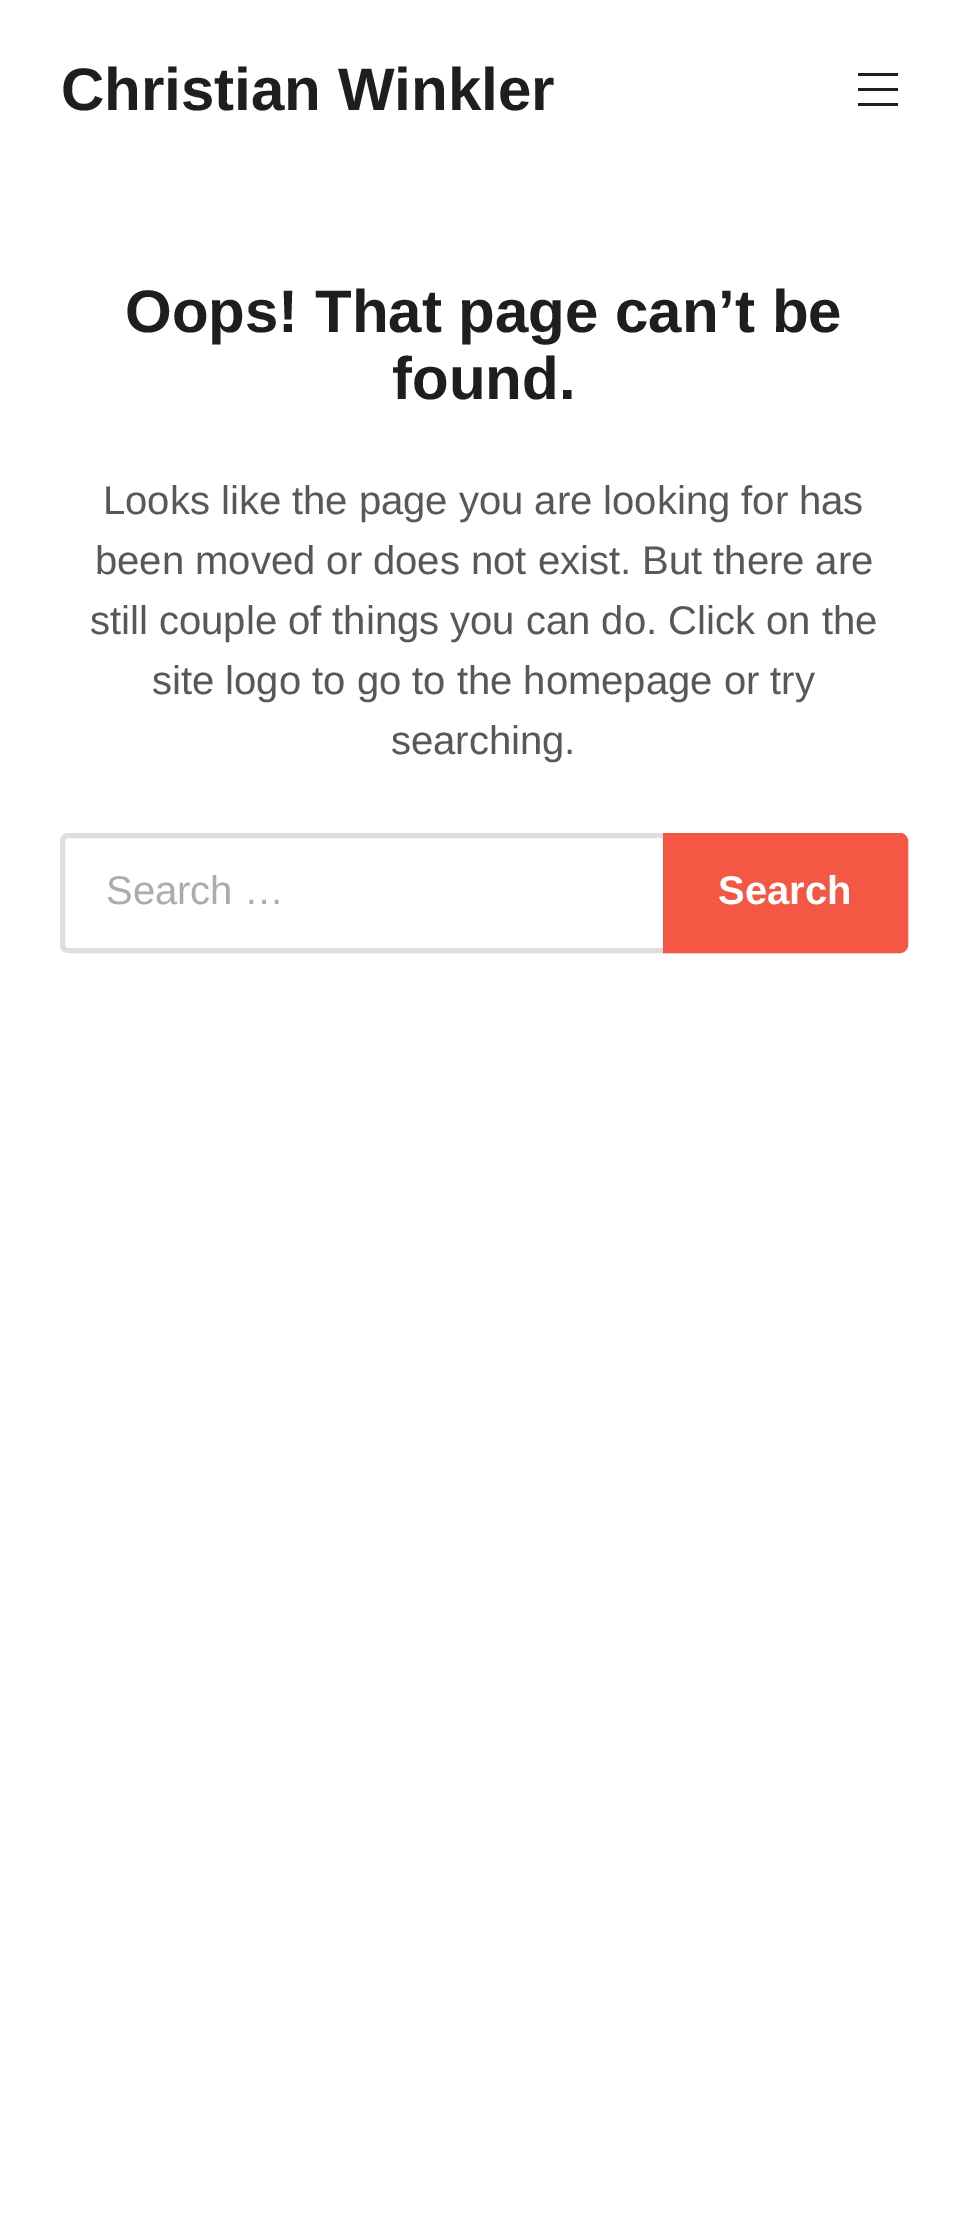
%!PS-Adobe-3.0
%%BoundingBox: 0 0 967 2229
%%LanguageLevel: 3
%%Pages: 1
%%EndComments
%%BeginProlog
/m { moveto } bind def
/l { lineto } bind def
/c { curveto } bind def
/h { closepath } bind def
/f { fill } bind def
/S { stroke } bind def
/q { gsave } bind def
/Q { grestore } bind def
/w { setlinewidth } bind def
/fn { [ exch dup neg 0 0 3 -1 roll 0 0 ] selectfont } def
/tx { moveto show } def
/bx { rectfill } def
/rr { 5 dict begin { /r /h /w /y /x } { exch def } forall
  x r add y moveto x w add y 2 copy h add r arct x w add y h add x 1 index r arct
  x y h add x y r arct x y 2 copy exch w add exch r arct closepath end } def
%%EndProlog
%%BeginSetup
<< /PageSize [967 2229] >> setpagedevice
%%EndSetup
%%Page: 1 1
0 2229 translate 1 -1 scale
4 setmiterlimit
1 setgray
0 0 967 2229 bx
/LiberationSans-Bold 60 fn
0.118 setgray
(Christian Winkler) 61 110 tx
858 88 40 3 bx
858 73 40 3 bx
858 103 40 3 bx
(Oops! That page can’t be) 125 332 tx
(found.) 392 399 tx
/LiberationSans-Regular 40 fn
0.345 setgray
(Looks like the page you are looking for has) 103 514 tx
(been moved or does not exist. But there are) 95 574 tx
(still couple of things you can do. Click on the) 90 634 tx
(site logo to go to the homepage or try) 152 694 tx
(searching.) 391 754 tx
0.871 setgray
5 w
62.5 835.5 843 115 5.5 rr S
0.675 setgray
(Search …) 106 904 tx
0.957 0.345 0.267 setrgbcolor
665.5 835.5 m 900 835.5 l 903 835.5 905.5 838 905.5 841 c 905.5 945 l 905.5 948 903 950.5 900 950.5 c 665.5 950.5 l h q f Q
S
/LiberationSans-Bold 40 fn
1 setgray
(Search) 718 904 tx
showpage
%%EOF
